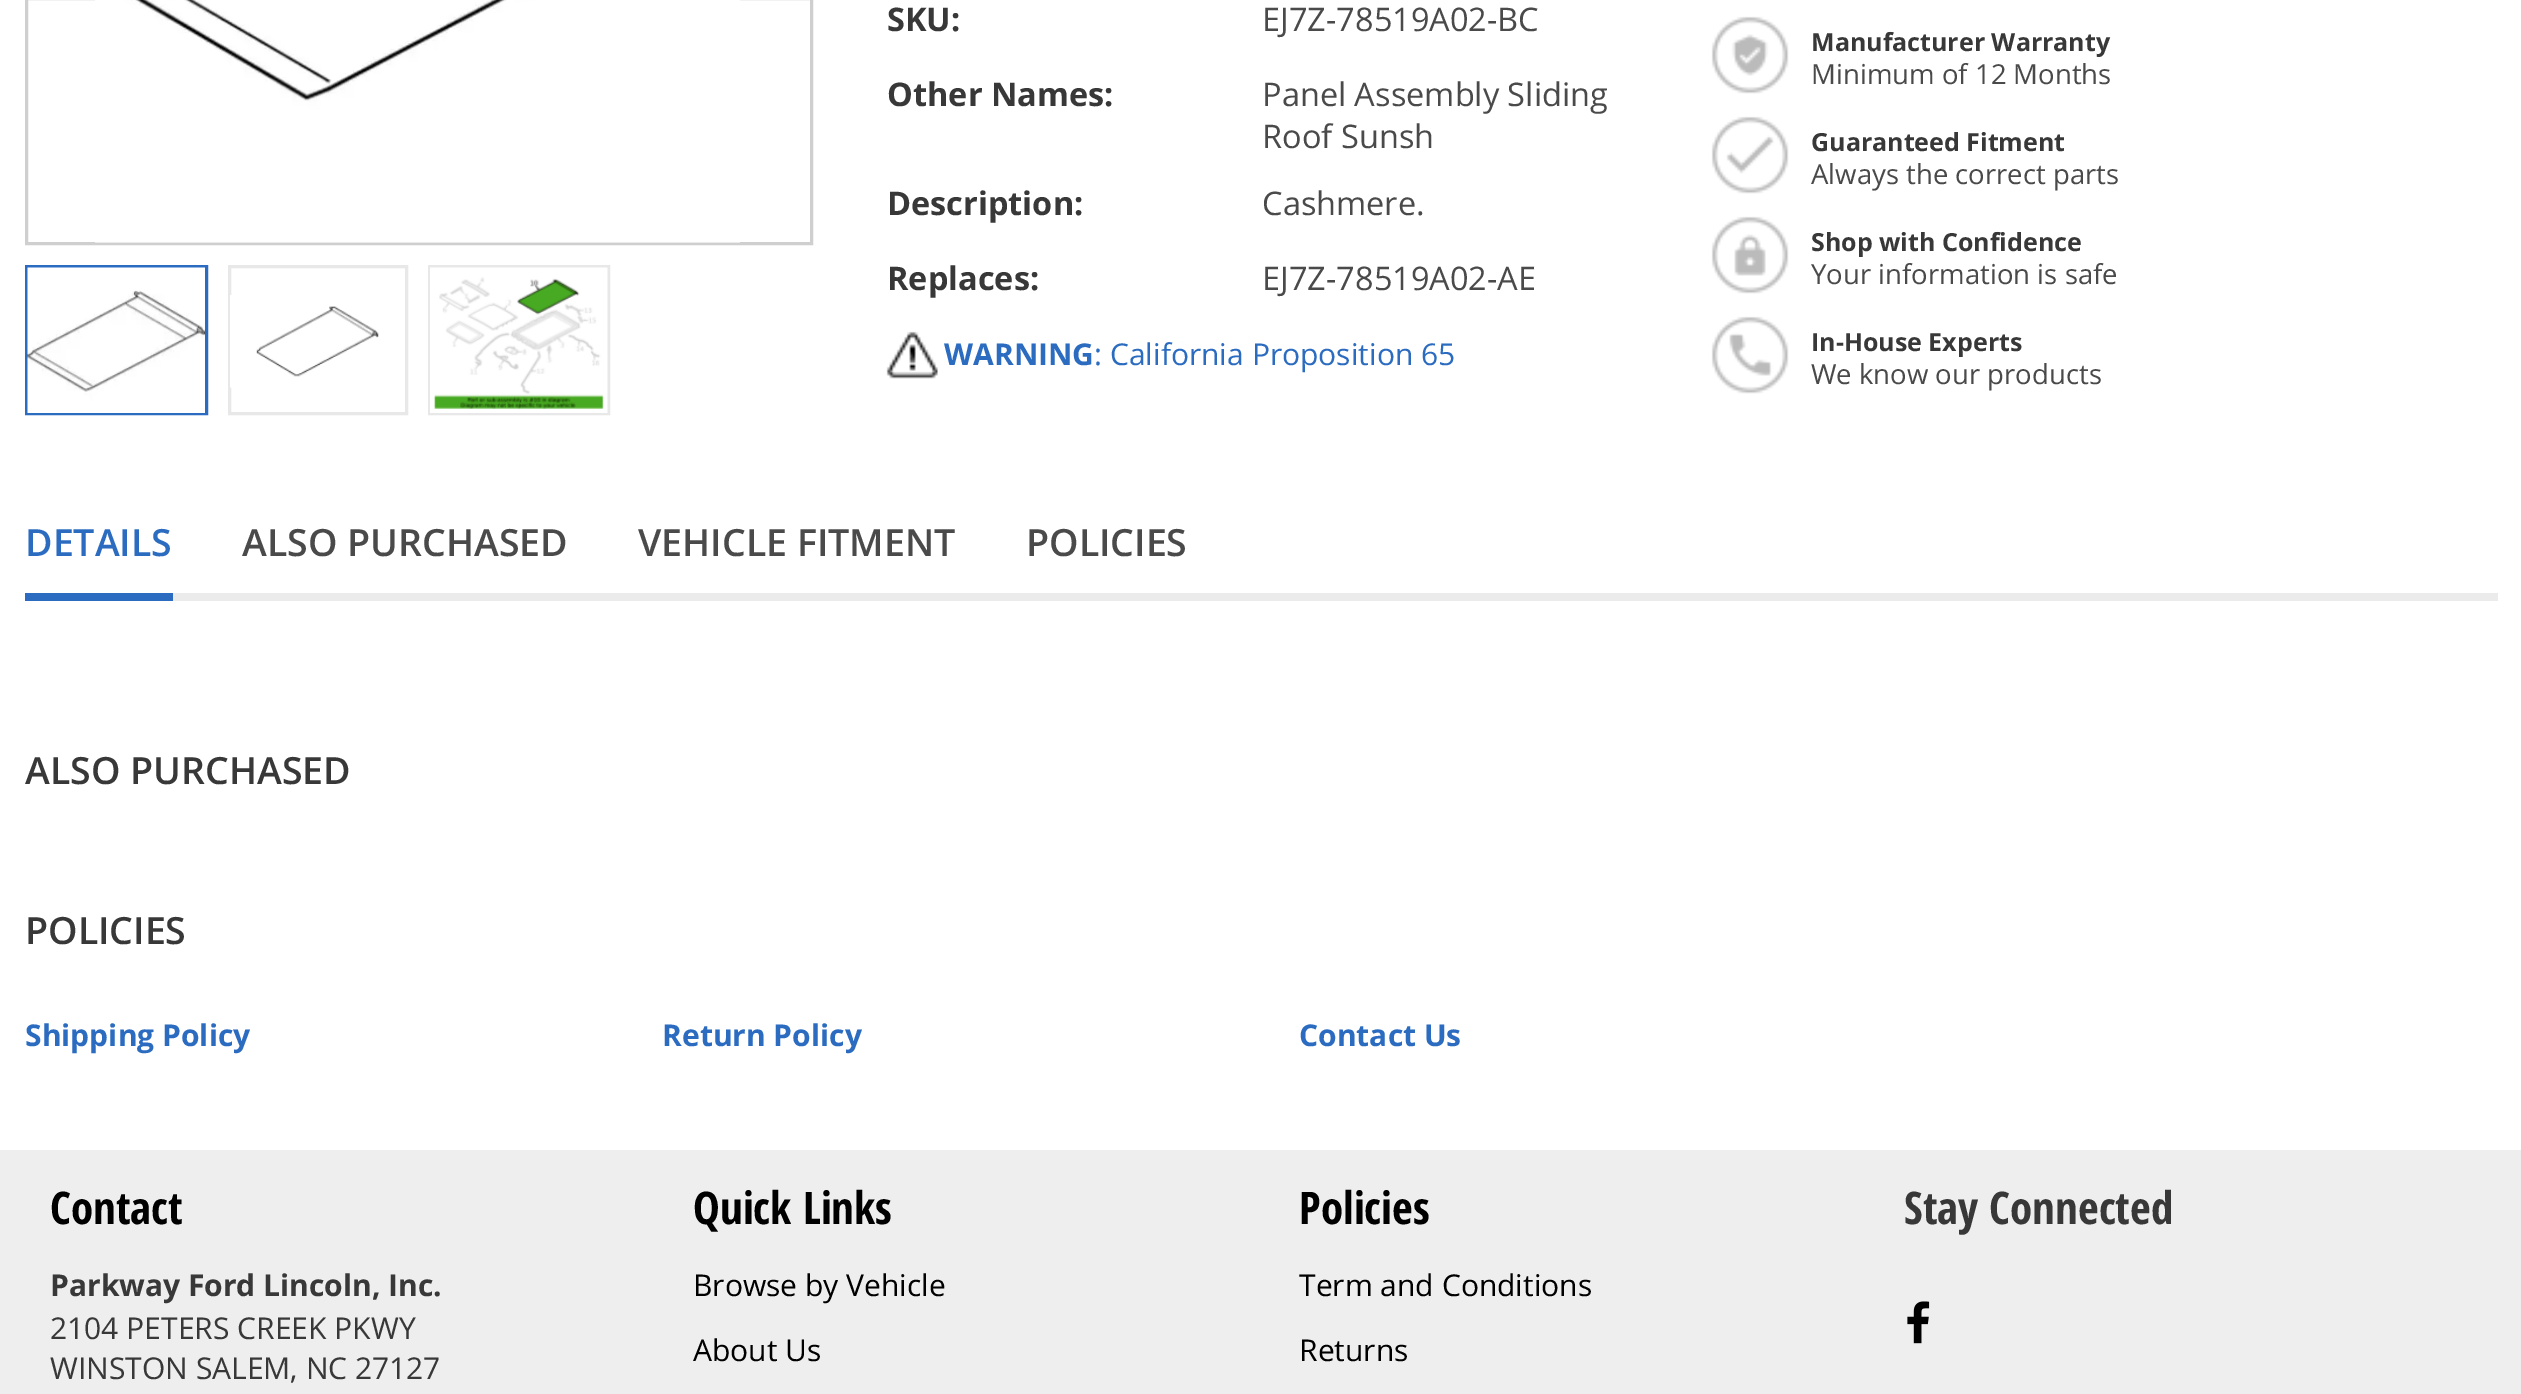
%!PS-Adobe-3.0
%%BoundingBox: 0 0 2521 1394
%%LanguageLevel: 3
%%Pages: 1
%%EndComments
%%BeginProlog
/w { setlinewidth } bind def
/fn { [ exch dup neg 0 0 3 -1 roll 0 0 ] selectfont } def
/tx { moveto show } def
/bx { rectfill } def
/im { 5 dict begin { /h /w /y /x /name } { exch def } forall
  gsave x y translate w h scale
  w h 8 [w 0 0 h 0 0] name (r) file false 3 colorimage grestore end } def
%%EndProlog
%%BeginSetup
<< /PageSize [2521 1394] >> setpagedevice
%%EndSetup
%%Page: 1 1
0 1394 translate 1 -1 scale
4 setmiterlimit
1 setgray
0 0 2521 1394 bx
0.812 setgray
3 w
26.5 -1.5 785 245 rectstroke
(image0.raw) 95 0 645 243 im
0.169 0.424 0.753 setrgbcolor
26.5 266.5 180 147 rectstroke
(image1.raw) 27 267 178 146 im
0.91 setgray
229.5 266.5 177 147 rectstroke
(image2.raw) 230 295 149 93 im
429.5 266.5 179 147 rectstroke
(image3.raw) 430 267 178 146 im
/OpenSans-Bold 32.5 fn
0.22 setgray
(SKU:) 887 31 tx
/OpenSans-Regular 32.5 fn
0.29 setgray
(EJ7Z-78519A02-BC) 1262 31 tx
/OpenSans-Bold 32.5 fn
0.22 setgray
(Other Names:) 887 106 tx
/OpenSans-Regular 32.5 fn
0.29 setgray
(Panel Assembly Sliding) 1262 106 tx
(Roof Sunsh) 1262 148 tx
/OpenSans-Bold 32.5 fn
0.22 setgray
(Description:) 887 215 tx
/OpenSans-Regular 32.5 fn
0.29 setgray
(Cashmere.) 1262 215 tx
/OpenSans-Bold 32.5 fn
0.22 setgray
(Replaces:) 887 290 tx
/OpenSans-Regular 32.5 fn
0.29 setgray
(EJ7Z-78519A02-AE) 1262 290 tx
(image4.raw) 886 331 52 48 im
/OpenSans-Bold 30 fn
0.169 0.424 0.753 setrgbcolor
(WARNING) 944 365 tx
/OpenSans-Regular 30 fn
(: California Proposition 65) 1094 365 tx
(image5.raw) 1711 16 78 78 im
/OpenSans-Bold 25 fn
0.22 setgray
(Manufacturer Warranty) 1811 51 tx
/OpenSans-Regular 27.5 fn
0.29 setgray
(Minimum of 12 Months) 1811 84 tx
(image6.raw) 1711 116 78 78 im
/OpenSans-Bold 25 fn
0.22 setgray
(Guaranteed Fitment) 1811 151 tx
/OpenSans-Regular 27.5 fn
0.29 setgray
(Always the correct parts) 1811 184 tx
(image7.raw) 1711 216 78 78 im
/OpenSans-Bold 25 fn
0.22 setgray
(Shop with Confidence) 1811 251 tx
/OpenSans-Regular 27.5 fn
0.29 setgray
(Your information is safe) 1811 284 tx
(image8.raw) 1711 316 78 78 im
/OpenSans-Bold 25 fn
0.22 setgray
(In-House Experts) 1811 351 tx
/OpenSans-Regular 27.5 fn
0.29 setgray
(We know our products) 1811 384 tx
0.922 setgray
173 593 2325 8 bx
0.169 0.424 0.753 setrgbcolor
25 593 148 8 bx
/OpenSans-SemiBold 37.5 fn
(DETAILS) 25 556 tx
0.29 setgray
(ALSO PURCHASED) 242 556 tx
(VEHICLE FITMENT) 638 556 tx
(POLICIES) 1026 556 tx
0.22 setgray
(ALSO PURCHASED) 25 784 tx
(POLICIES) 25 944 tx
/OpenSans-Bold 30 fn
0.169 0.424 0.753 setrgbcolor
(Shipping Policy) 25 1046 tx
(Return Policy) 662 1046 tx
(Contact Us) 1299 1046 tx
0.933 setgray
0 1150 2521 244 bx
/OpenSansCondensed-Bold 45 fn
0 setgray
(Contact) 50 1224 tx
/OpenSans-Bold 30 fn
0.22 setgray
(Parkway Ford Lincoln, Inc.) 50 1296 tx
/OpenSans-Regular 30 fn
(2104 PETERS CREEK PKWY) 50 1339 tx
(WINSTON SALEM, NC 27127) 50 1379 tx
/OpenSansCondensed-Bold 45 fn
0 setgray
(Quick Links) 693 1224 tx
/OpenSans-Regular 30 fn
(Browse by Vehicle) 693 1296 tx
(About Us) 693 1361 tx
/OpenSansCondensed-Bold 45 fn
(Policies) 1299 1224 tx
/OpenSans-Regular 30 fn
(Term and Conditions) 1299 1296 tx
(Returns) 1299 1361 tx
/OpenSansCondensed-Bold 45 fn
0.22 setgray
(Stay Connected) 1904 1224 tx
(image9.raw) 1907 1301 23 43 im
showpage
%%EOF
